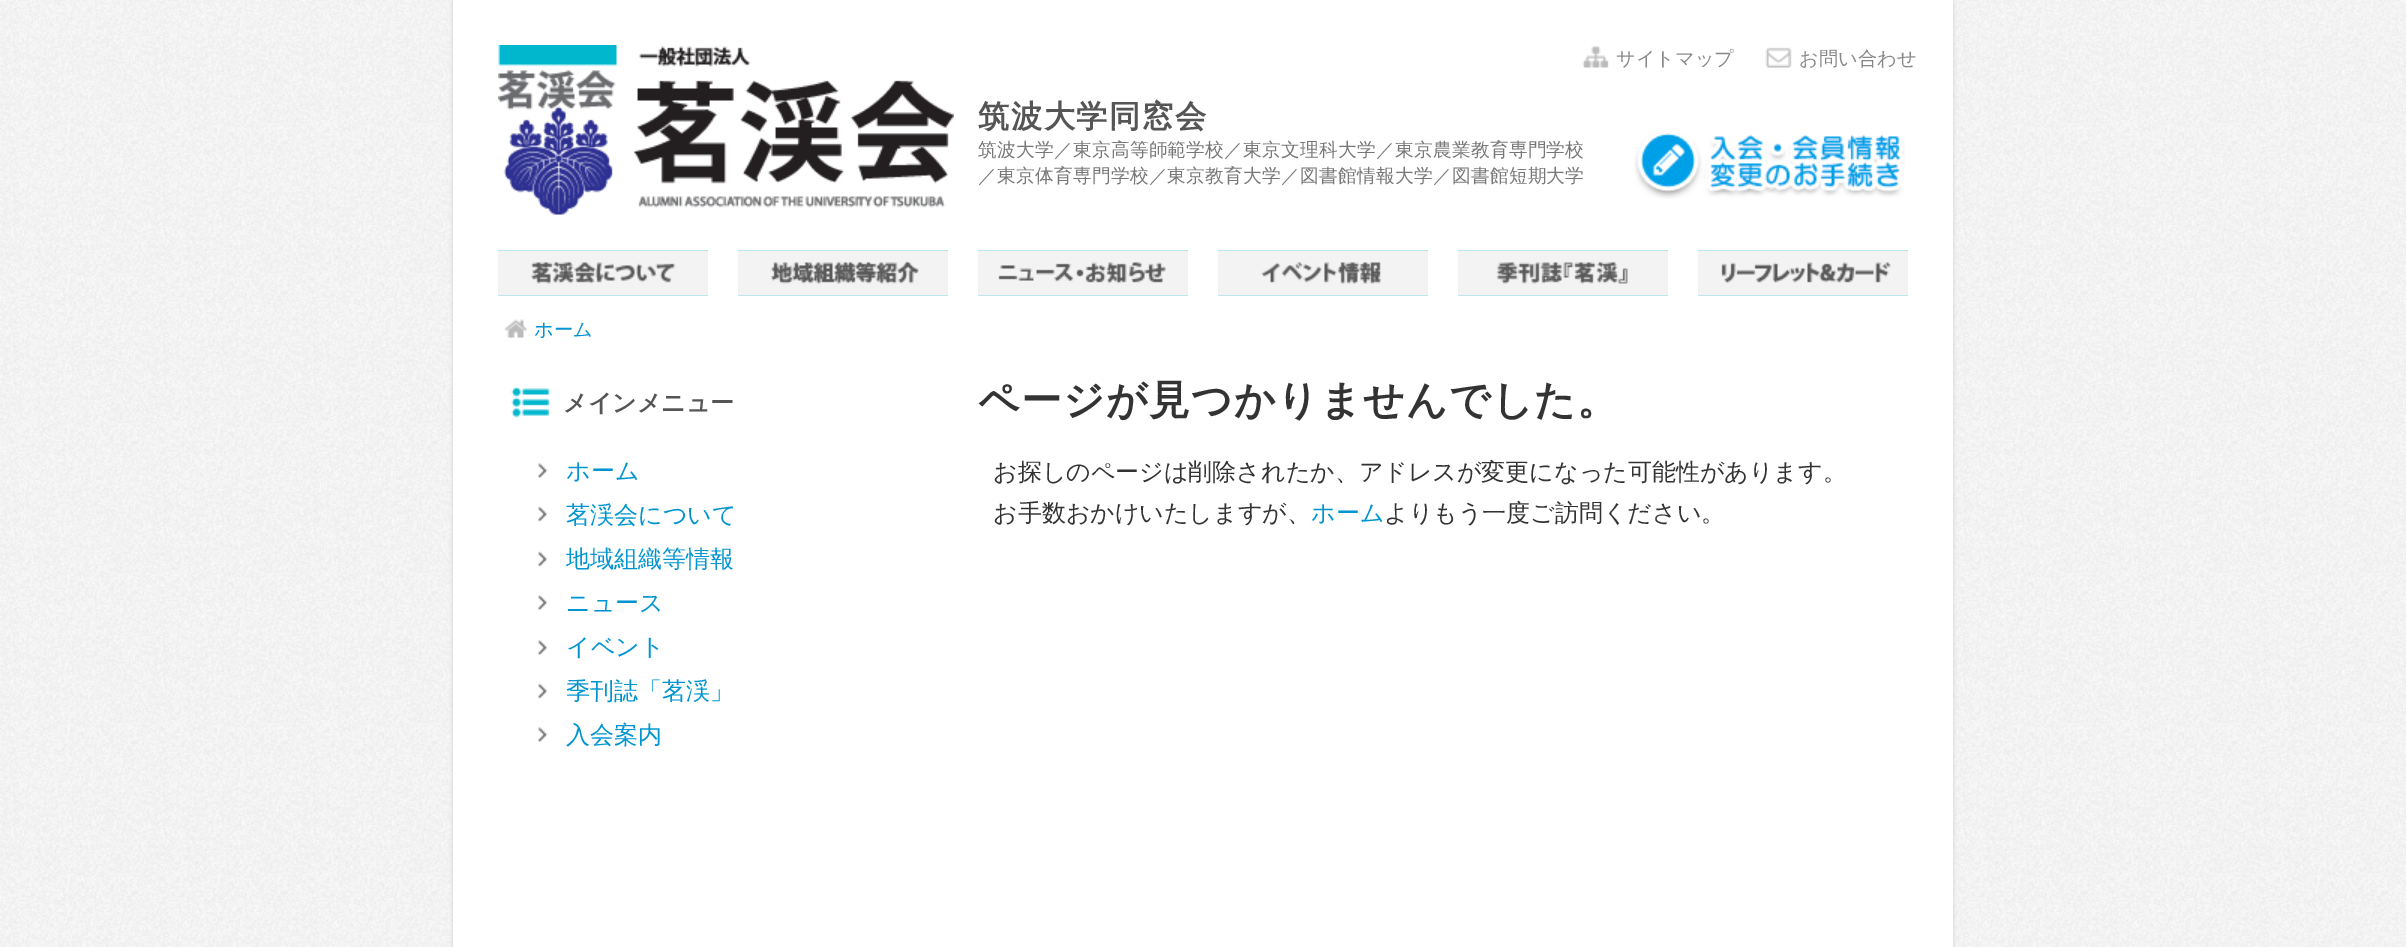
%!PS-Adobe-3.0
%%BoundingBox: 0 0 2406 947
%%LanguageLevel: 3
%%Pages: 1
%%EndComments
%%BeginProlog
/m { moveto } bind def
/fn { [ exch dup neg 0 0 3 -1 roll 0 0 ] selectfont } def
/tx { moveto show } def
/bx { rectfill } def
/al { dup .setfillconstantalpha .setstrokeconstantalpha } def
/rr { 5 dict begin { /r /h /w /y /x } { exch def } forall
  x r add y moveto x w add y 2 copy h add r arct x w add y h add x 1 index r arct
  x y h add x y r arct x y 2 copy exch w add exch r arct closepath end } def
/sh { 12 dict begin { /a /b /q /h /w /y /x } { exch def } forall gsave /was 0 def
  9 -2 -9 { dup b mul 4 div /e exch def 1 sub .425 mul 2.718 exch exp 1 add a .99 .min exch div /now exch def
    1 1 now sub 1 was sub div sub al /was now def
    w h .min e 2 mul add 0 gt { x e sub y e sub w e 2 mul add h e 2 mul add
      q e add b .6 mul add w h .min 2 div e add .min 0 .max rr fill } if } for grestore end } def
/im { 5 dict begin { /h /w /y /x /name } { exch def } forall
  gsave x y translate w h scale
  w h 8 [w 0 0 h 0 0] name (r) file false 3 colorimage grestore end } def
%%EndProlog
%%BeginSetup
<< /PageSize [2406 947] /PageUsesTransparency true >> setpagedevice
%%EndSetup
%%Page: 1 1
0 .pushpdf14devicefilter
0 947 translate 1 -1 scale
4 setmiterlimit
1 setgray
0 0 2406 947 bx
(image0.raw) 0 0 2406 947 im
0.8 setgray
453 0 1500 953 0 2 1 sh
1 setgray
453 0 1500 947 bx
(image1.raw) 498 45 456 170 im
(image2.raw) 1582 46 27 22 im
/WenQuanYiZenHei-Medium 19.25 fn
0.533 setgray
(サイトマップ) 1616 65 tx
(image3.raw) 1765 47 27 21 im
(お問い合わせ) 1799 65 tx
/WenQuanYiZenHei-Bold 31.25 fn
0.333 setgray
978 127 m 1.5 0 (筑波大学同窓会) ashow
/WenQuanYiZenHei-Medium 18.75 fn
0.467 setgray
978 156 m 0.2 0 (筑波大学／東京高等師範学校／東京文理科大学／東京農業教育専門学校) ashow
978 182 m 0.2 0 (／東京体育専門学校／東京教育大学／図書館情報大学／図書館短期大学) ashow
(image4.raw) 1634 133 271 66 im
(image5.raw) 498 250 210 46 im
(image6.raw) 498 250 210 46 im
(image7.raw) 738 250 210 46 im
(image8.raw) 738 250 210 46 im
(image9.raw) 978 250 210 46 im
(image10.raw) 978 250 210 46 im
(image11.raw) 1218 250 210 46 im
(image12.raw) 1218 250 210 46 im
(image13.raw) 1458 250 210 46 im
(image14.raw) 1458 250 210 46 im
(image15.raw) 1698 250 210 46 im
(image16.raw) 1698 250 210 46 im
(image17.raw) 504 319 23 19 im
/WenQuanYiZenHei-Medium 19.25 fn
0 0.584 0.816 setrgbcolor
(ホーム) 534 336 tx
(image18.raw) 511 386 39 32 im
/WenQuanYiZenHei-Bold 24 fn
0.333 setgray
(メインメニュー) 563 411 tx
(image19.raw) 538 463 10 16 im
/WenQuanYiZenHei-Medium 24 fn
0 0.584 0.816 setrgbcolor
(ホーム) 566 479 tx
(image20.raw) 538 506 10 16 im
(茗渓会について) 566 523 tx
(image20.raw) 538 551 10 16 im
(地域組織等情報) 566 567 tx
(image19.raw) 538 595 10 16 im
(ニュース) 566 611 tx
(image19.raw) 538 640 10 16 im
(イベント) 566 655 tx
(image20.raw) 538 683 10 16 im
(季刊誌「茗渓」) 566 699 tx
(image19.raw) 538 727 10 16 im
(入会案内) 566 743 tx
/WenQuanYiZenHei-Bold 40.75 fn
0.2 setgray
978 414 m 1.25 0 (ページが見つかりませんでした。) ashow
/WenQuanYiZenHei-Medium 24 fn
(お探しのページは削除されたか、アドレスが変更になった可能性があります。) 993 480 tx
(お手数おかけいたしますが、) 993 521 tx
0 0.584 0.816 setrgbcolor
(ホーム) 1311 521 tx
0.2 setgray
(よりもう一度ご訪問ください。) 1384 521 tx
.poppdf14devicefilter showpage
%%EOF
